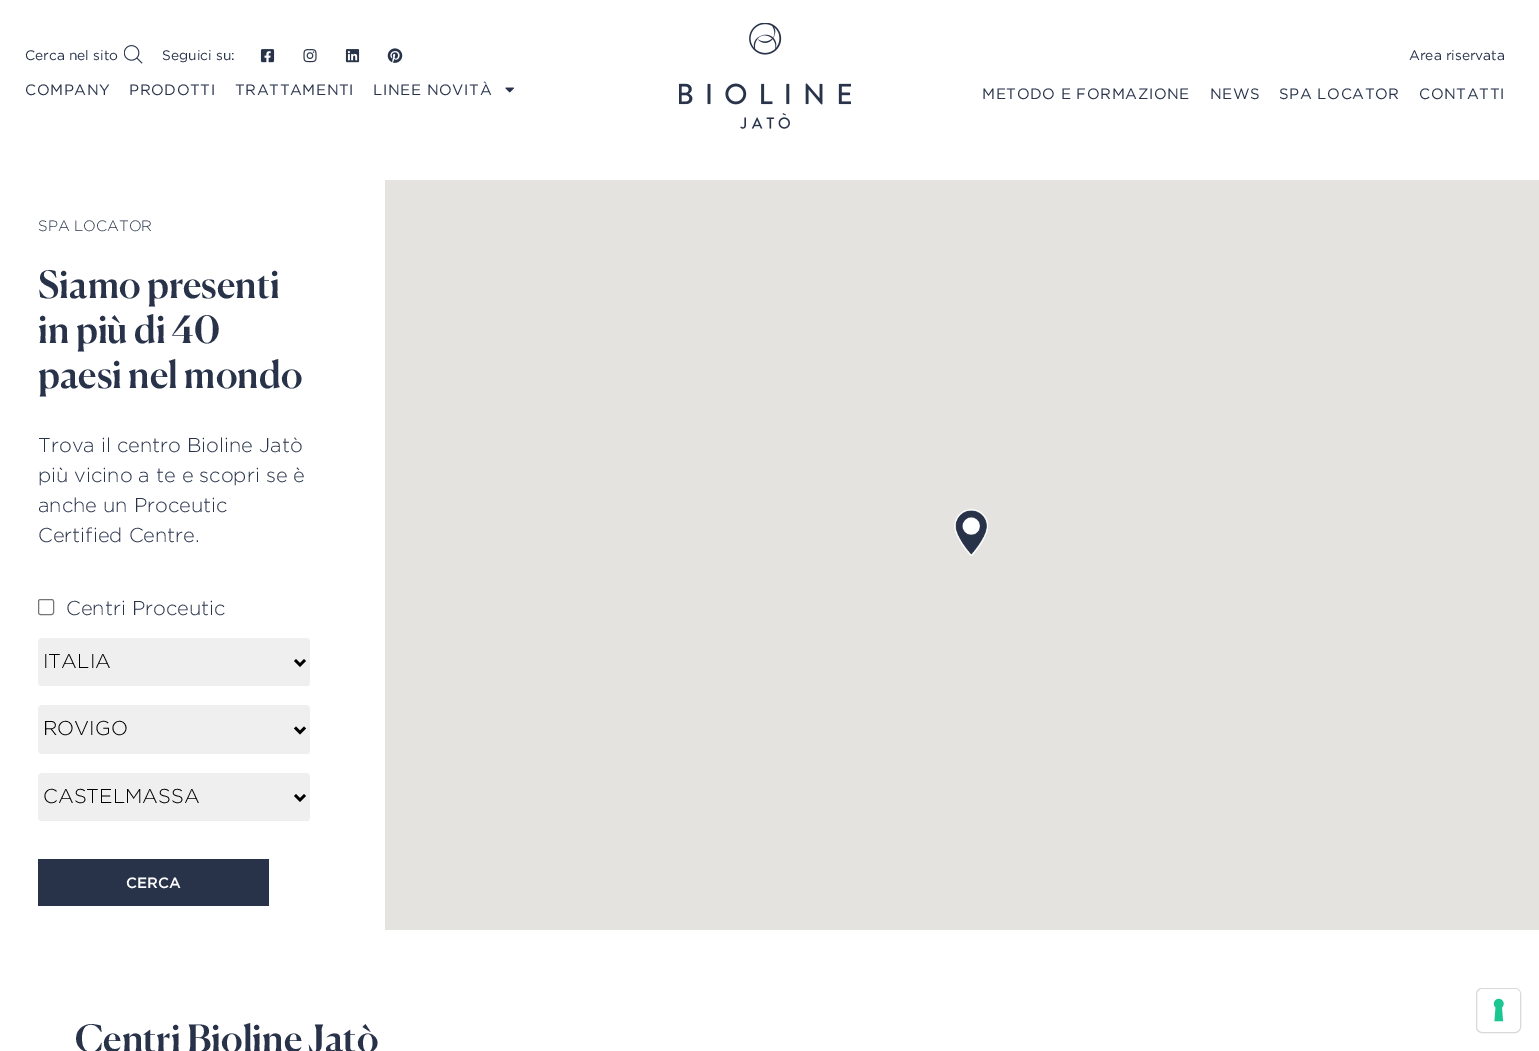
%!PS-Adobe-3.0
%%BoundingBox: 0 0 1539 1051
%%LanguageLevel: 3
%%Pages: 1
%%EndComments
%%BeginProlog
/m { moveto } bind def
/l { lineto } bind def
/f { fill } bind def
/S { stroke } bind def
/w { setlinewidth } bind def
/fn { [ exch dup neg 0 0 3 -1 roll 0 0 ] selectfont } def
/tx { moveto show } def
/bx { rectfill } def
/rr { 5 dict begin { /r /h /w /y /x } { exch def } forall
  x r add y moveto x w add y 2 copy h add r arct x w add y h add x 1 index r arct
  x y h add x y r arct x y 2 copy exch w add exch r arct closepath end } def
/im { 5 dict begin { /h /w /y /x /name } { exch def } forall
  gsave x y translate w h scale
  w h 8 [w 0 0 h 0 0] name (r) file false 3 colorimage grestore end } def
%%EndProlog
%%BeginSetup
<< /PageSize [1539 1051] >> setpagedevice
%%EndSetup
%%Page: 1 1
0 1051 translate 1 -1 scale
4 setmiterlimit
1 setgray
0 0 1539 1051 bx
/Gotham-Regular 13.75 fn
0.157 0.2 0.29 setrgbcolor
(Cerca nel sito) 25 60 tx
(image0.raw) 124 45 19 19 im
(Seguici su:) 162 60 tx
(image1.raw) 260 49 15 14 im
(image2.raw) 303 49 14 14 im
(image3.raw) 345 49 15 14 im
(image4.raw) 387 48 16 15 im
/Gotham-Regular 15 fn
25 95 m 0.6 0 (COMPANY) ashow
129 95 m 0.6 0 (PRODOTTI) ashow
235 95 m 0.6 0 (TRATTAMENTI) ashow
373 95 m 0.6 0 (LINEE NOVITÀ) ashow
(image5.raw) 505 87 9 6 im
(image6.raw) 679 23 172 106 im
/Gotham-Regular 13.75 fn
(Area riservata) 1409 60 tx
/Gotham-Regular 15 fn
982 99 m 0.6 0 (METODO E FORMAZIONE) ashow
1210 99 m 0.6 0 (NEWS) ashow
1279 99 m 0.6 0 (SPA LOCATOR) ashow
1419 99 m 0.6 0 (CONTATTI) ashow
/Gotham-Light 15 fn
(SPA LOCATOR) 38 231 tx
/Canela-Medium 37.5 fn
(Siamo presenti) 38 298 tx
(in più di 40) 38 343 tx
(paesi nel mondo) 38 388 tx
/Gotham-Light 20 fn
(Trova il centro Bioline Jatò) 38 452 tx
(più vicino a te e scopri se è) 38 482 tx
(anche un Proceutic) 38 512 tx
(Certified Centre.) 38 542 tx
0.463 setgray
38.5 599.5 15 15 2 rr S
0.157 0.2 0.29 setrgbcolor
(Centri Proceutic) 66 615 tx
0.937 setgray
38 638 272 48 4 rr f
0.933 setgray
40 685 269 1 bx
0 setgray
2.5 w
295 660 m 300 665 l 305 660 l S
(ITALIA) 43 668 tx
0.937 setgray
38 705 272 49 4 rr f
0.933 setgray
40 753 269 1 bx
0 setgray
295 727.5 m 300 732.5 l 305 727.5 l S
(ROVIGO) 43 735 tx
0.937 setgray
38 773 272 48 4 rr f
0.933 setgray
40 820 269 1 bx
0 setgray
295 795 m 300 800 l 305 795 l S
(CASTELMASSA) 43 803 tx
0.157 0.2 0.29 setrgbcolor
38 859 231 47 bx
/Gotham-Medium 15 fn
1 setgray
(CERCA) 126 888 tx
0.898 0.89 0.875 setrgbcolor
385 180 1154 750 bx
(image7.raw) 954 508 34 48 im
/Canela-Medium 37.5 fn
0.157 0.2 0.29 setrgbcolor
(Centri Bioline Jatò) 75 1052 tx
0.851 setgray
1 w
1476.5 988.5 44 44 5.5 rr S
1 setgray
1478 989 42 42 5 rr f
(image8.raw) 1493 998 11 24 im
showpage
%%EOF
